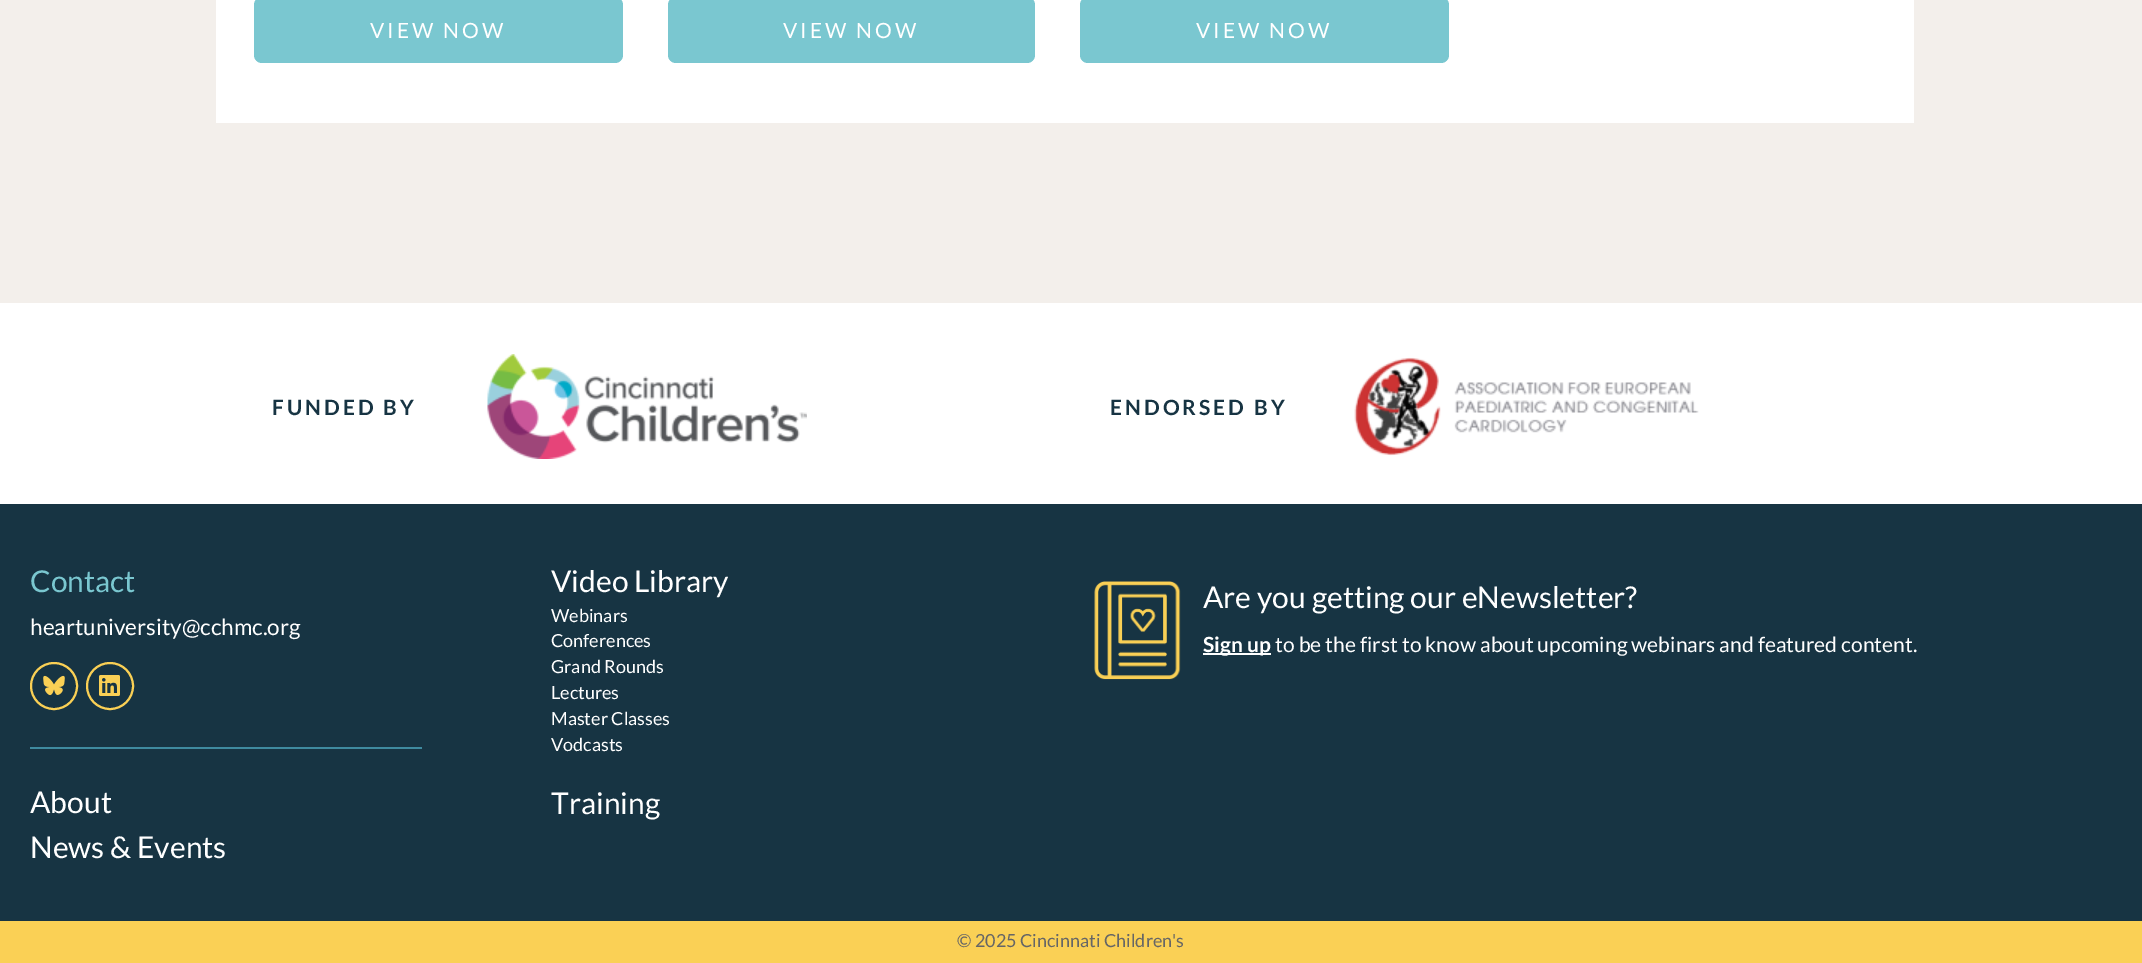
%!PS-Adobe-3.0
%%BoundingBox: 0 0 2142 963
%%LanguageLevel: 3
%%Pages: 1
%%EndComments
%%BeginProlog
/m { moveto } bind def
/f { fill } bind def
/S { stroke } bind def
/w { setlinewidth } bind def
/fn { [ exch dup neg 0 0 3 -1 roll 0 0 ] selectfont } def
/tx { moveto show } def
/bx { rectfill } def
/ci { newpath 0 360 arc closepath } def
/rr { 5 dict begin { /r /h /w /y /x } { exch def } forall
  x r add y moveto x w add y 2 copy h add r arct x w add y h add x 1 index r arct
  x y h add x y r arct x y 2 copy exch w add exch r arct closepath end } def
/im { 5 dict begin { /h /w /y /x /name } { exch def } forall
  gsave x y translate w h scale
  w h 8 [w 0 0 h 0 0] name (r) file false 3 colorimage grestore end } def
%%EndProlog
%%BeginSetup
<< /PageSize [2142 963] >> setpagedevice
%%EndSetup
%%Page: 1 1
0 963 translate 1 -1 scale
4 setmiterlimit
1 setgray
0 0 2142 963 bx
0.953 0.937 0.922 setrgbcolor
0 0 2142 303 bx
1 setgray
216 0 1698 123 bx
0.478 0.78 0.816 setrgbcolor
254 -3 369 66 8 rr f
/Lato-Regular 21 fn
1 setgray
370 38 m 3 0 (VIEW NOW) ashow
0.478 0.78 0.816 setrgbcolor
668 -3 367 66 8 rr f
1 setgray
783 38 m 3 0 (VIEW NOW) ashow
0.478 0.78 0.816 setrgbcolor
1080 -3 369 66 8 rr f
1 setgray
1196 38 m 3 0 (VIEW NOW) ashow
/Lato-Bold 21 fn
0.09 0.204 0.263 setrgbcolor
272 415 m 3 0 (FUNDED BY) ashow
(image0.raw) 487 354 320 105 im
1110 415 m 3 0 (ENDORSED BY) ashow
(image1.raw) 1354 357 345 99 im
0 504 2142 417 bx
/Lato-Regular 30 fn
0.478 0.78 0.816 setrgbcolor
(Contact) 30 592 tx
/Lato-Regular 22.5 fn
1 setgray
(heartuniversity@cchmc.org) 30 635 tx
0.98 0.816 0.333 setrgbcolor
2 w
54 686 23 ci S
(image2.raw) 43 675 22 21 im
110 686 23 ci S
(image3.raw) 99 675 21 21 im
0.247 0.541 0.624 setrgbcolor
30 747 392 2 bx
/Lato-Regular 30 fn
1 setgray
(About) 30 813 tx
(News & Events) 30 858 tx
(Video Library) 551 592 tx
/Lato-Regular 18 fn
(Webinars) 551 622 tx
(Conferences) 551 647 tx
(Grand Rounds) 551 673 tx
(Lectures) 551 699 tx
(Master Classes) 551 725 tx
(Vodcasts) 551 751 tx
/Lato-Regular 30 fn
(Training) 551 814 tx
(image4.raw) 1094 581 87 99 im
(Are you getting our eNewsletter?) 1203 608 tx
1203 653 68 2 bx
/Lato-Bold 21 fn
(Sign up) 1203 652 tx
/Lato-Regular 21 fn
(to be the first to know about upcoming webinars and featured content.) 1275 652 tx
0.98 0.816 0.333 setrgbcolor
0 921 2142 42 bx
/Lato-Regular 18 fn
0.4 setgray
(© 2025 Cincinnati Children's) 957 947 tx
showpage
%%EOF
